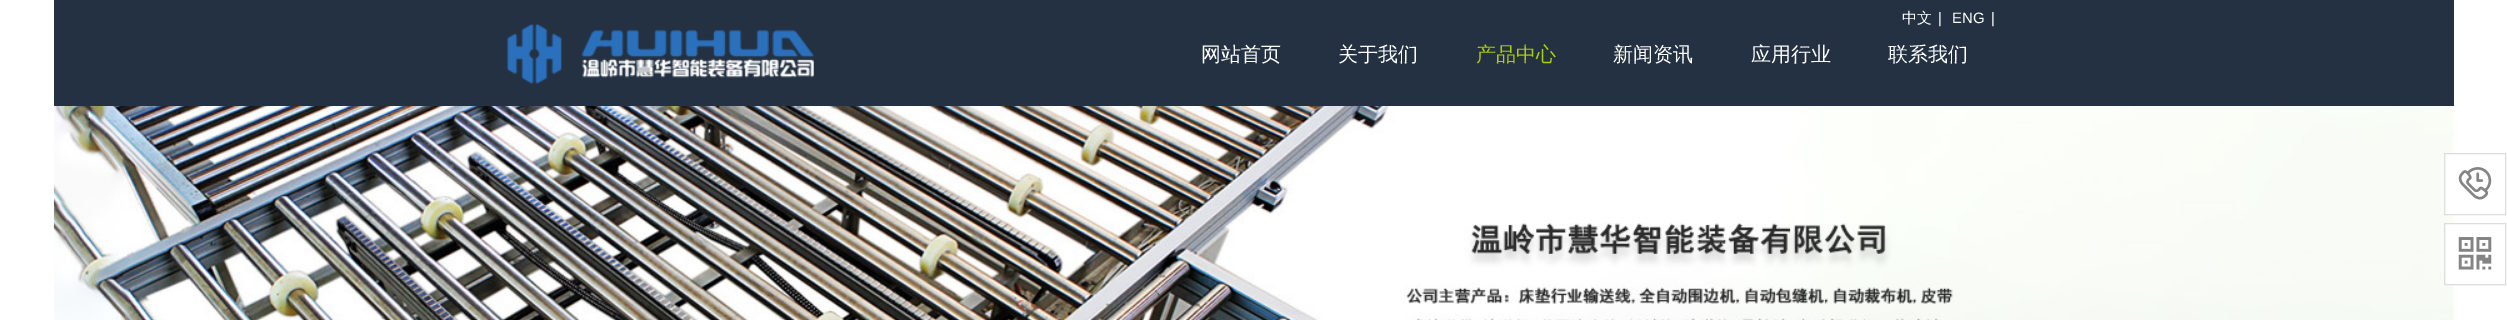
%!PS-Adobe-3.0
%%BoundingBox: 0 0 2507 320
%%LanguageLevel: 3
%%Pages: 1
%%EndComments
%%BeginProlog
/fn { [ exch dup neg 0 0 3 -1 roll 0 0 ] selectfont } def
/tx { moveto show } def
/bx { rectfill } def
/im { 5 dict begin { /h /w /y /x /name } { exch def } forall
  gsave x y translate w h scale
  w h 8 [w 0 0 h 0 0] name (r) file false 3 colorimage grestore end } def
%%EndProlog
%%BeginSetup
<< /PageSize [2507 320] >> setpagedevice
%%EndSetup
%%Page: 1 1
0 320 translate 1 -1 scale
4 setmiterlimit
1 setgray
0 0 2507 320 bx
(image1.raw) 53 104 2401 216 im
0.141 0.192 0.259 setrgbcolor
54 0 2400 106 bx
/WenQuanYiZenHei-Medium 15 fn
1 setgray
(中文) 1902 23 tx
/LiberationSans-Regular 15 fn
(|) 1938 23 tx
(ENG) 1952 23 tx
(|) 1991 23 tx
(image0.raw) 507 23 307 61 im
/WenQuanYiZenHei-Medium 20 fn
(网站首页) 1201 61 tx
(关于我们) 1338 61 tx
0.671 0.804 0.02 setrgbcolor
(产品中心) 1476 61 tx
1 setgray
(新闻资讯) 1613 61 tx
(应用行业) 1751 61 tx
(联系我们) 1888 61 tx
2445 154 9 60 bx
0.867 setgray
2444.5 153.5 61 61 rectstroke
(image2.raw) 2458 167 34 33 im
1 setgray
2445 224 9 60 bx
0.867 setgray
2444.5 223.5 61 61 rectstroke
(image3.raw) 2458 237 34 33 im
showpage
%%EOF
